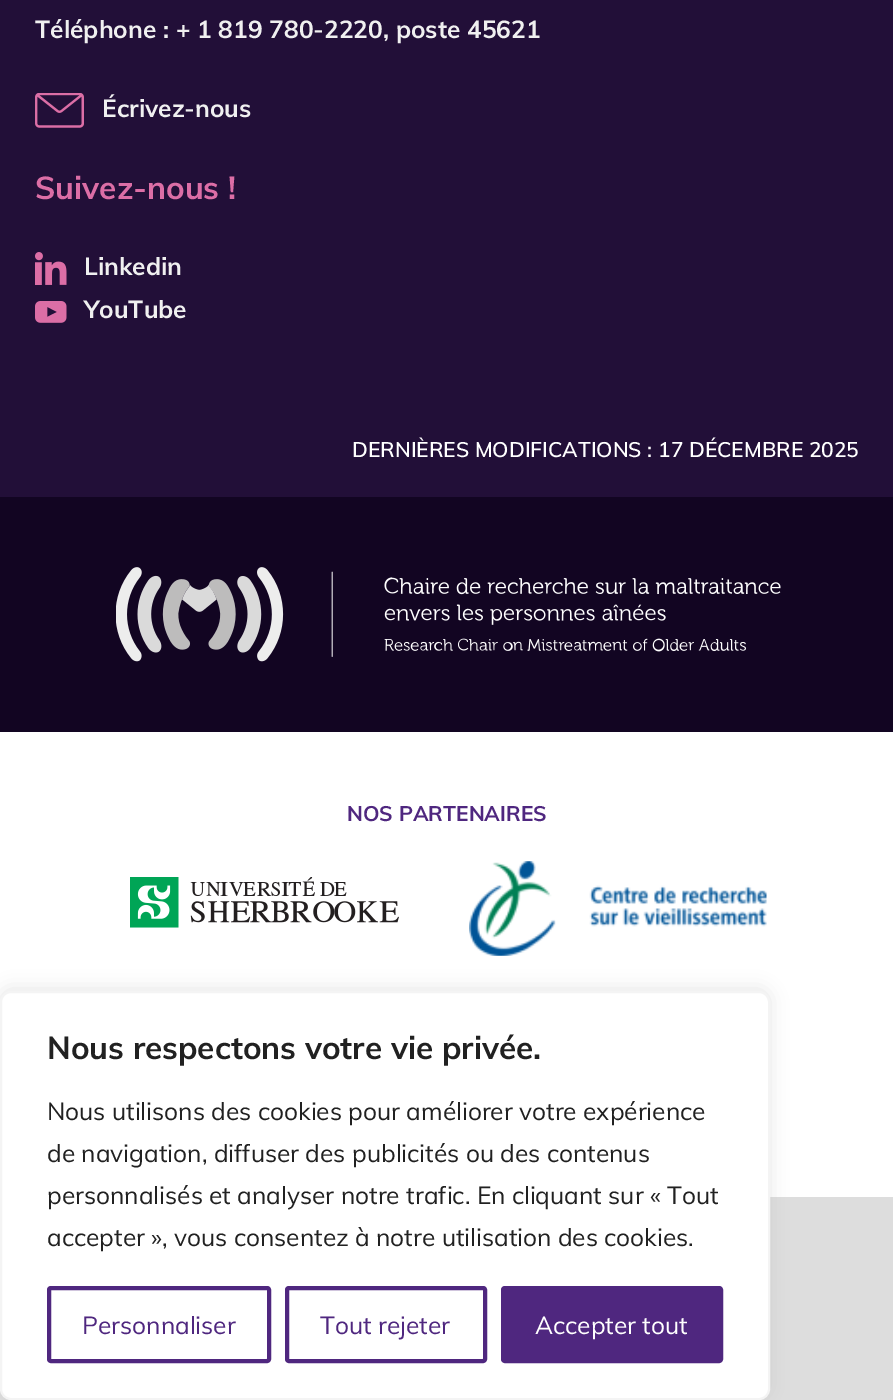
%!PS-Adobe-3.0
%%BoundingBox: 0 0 893 1400
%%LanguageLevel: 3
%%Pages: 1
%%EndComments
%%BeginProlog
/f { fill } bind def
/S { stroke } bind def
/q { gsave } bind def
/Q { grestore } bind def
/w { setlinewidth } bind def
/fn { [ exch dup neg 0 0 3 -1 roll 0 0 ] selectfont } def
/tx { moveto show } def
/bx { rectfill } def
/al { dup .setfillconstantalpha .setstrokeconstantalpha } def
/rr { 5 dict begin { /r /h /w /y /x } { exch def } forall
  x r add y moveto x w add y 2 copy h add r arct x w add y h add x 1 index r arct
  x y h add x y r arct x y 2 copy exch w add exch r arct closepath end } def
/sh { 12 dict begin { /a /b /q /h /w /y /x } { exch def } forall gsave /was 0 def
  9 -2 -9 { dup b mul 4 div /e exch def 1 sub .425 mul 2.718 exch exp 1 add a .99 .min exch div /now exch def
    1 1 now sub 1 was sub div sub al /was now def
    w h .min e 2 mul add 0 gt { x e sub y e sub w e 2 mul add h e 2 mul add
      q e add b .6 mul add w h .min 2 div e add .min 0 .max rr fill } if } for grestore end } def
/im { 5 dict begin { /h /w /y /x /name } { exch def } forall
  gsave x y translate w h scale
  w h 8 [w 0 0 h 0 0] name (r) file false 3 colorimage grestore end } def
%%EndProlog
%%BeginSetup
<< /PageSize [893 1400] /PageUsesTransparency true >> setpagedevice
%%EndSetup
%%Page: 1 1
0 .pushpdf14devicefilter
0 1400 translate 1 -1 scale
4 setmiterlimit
0.133 0.059 0.22 setrgbcolor
0 0 893 1400 bx
/Muli-Bold 24.5 fn
0.941 setgray
(Téléphone : + 1 819 780-2220, poste 45621) 35 38 tx
(image0.raw) 35 93 49 35 im
(Écrivez-nous) 102 117 tx
/Muli-Bold 31.5 fn
0.863 0.431 0.651 setrgbcolor
(Suivez-nous !) 35 199 tx
(image1.raw) 35 252 32 33 im
/Muli-Bold 24.5 fn
0.941 setgray
(Linkedin) 84 275 tx
(image2.raw) 35 301 32 22 im
(YouTube) 84 318 tx
/Muli-SemiBold 21 fn
1 setgray
(DERNIÈRES MODIFICATIONS : 17 DÉCEMBRE 2025) 352 457 tx
0.071 0.02 0.133 setrgbcolor
0 497 893 235 bx
(image3.raw) 116 567 665 95 im
1 setgray
0 732 893 465 bx
/Muli-Bold 21 fn
0.31 0.153 0.498 setrgbcolor
(NOS PARTENAIRES) 347 821 tx
(image4.raw) 130 877 269 51 im
(image5.raw) 469 861 298 95 im
0.867 setgray
0 1197 893 203 bx
0.675 0.671 0.671 setrgbcolor
0 989 770 409 11 9 0.3 sh
1 setgray
1 992 768 407 10 rr q f Q
0.957 setgray
2 w
S
/Muli-Bold 31.5 fn
0.129 setgray
(Nous respectons votre vie privée.) 47 1059 tx
/Muli-Regular 24.5 fn
(Nous utilisons des cookies pour améliorer votre expérience) 47 1120 tx
(de navigation, diffuser des publicités ou des contenus) 47 1162 tx
(personnalisés et analyser notre trafic. En cliquant sur « Tout) 47 1204 tx
(accepter », vous consentez à notre utilisation des cookies.) 47 1246 tx
0.31 0.153 0.498 setrgbcolor
4 w
49 1288 220 73 2 rr S
(Personnaliser) 82 1334 tx
287 1288 198 73 2 rr S
(Tout rejeter) 320 1334 tx
503 1288 218 73 2 rr q f Q
S
1 setgray
(Accepter tout) 535 1334 tx
.poppdf14devicefilter showpage
%%EOF
